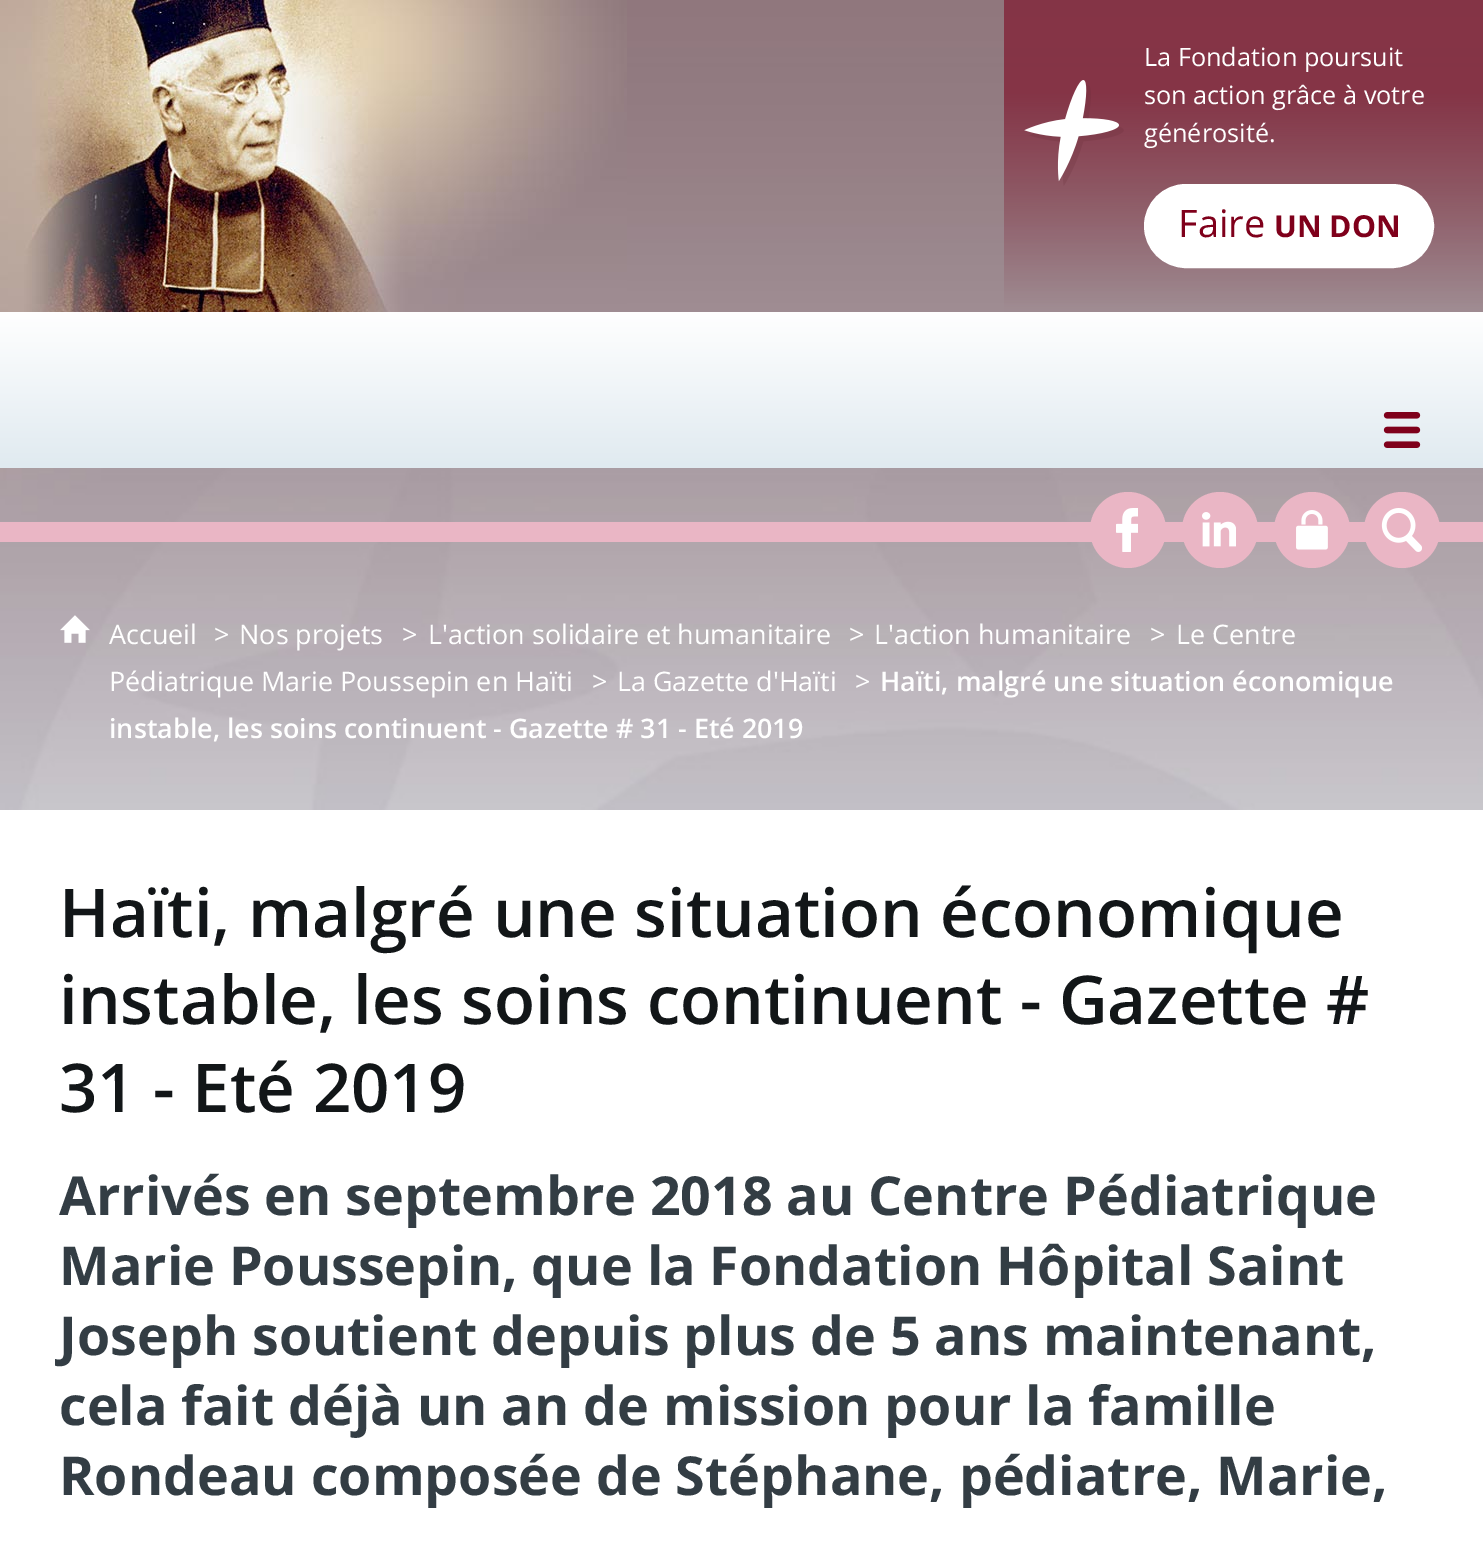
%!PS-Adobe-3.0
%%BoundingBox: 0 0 1483 1541
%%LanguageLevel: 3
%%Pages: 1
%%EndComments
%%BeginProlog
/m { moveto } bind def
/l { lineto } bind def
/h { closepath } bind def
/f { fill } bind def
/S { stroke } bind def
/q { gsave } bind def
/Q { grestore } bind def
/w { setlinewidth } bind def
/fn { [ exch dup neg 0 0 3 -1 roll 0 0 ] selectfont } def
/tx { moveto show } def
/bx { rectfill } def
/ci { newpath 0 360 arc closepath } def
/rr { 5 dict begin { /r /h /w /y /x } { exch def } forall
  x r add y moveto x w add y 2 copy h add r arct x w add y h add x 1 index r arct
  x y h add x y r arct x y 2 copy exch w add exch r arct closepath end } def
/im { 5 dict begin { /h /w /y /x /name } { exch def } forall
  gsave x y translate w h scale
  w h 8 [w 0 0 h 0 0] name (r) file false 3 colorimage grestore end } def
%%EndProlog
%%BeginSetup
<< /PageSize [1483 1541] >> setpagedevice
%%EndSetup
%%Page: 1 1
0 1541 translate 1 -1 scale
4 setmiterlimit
1 setgray
0 0 1483 1541 bx
(image0.raw) 0 0 1483 810 im
(image1.raw) 0 0 627 312 im
(image2.raw) 1024 80 100 106 im
/OpenSans-Regular 25.25 fn
(La Fondation poursuit) 1144 66 tx
(son action grâce à votre) 1144 104 tx
(générosité.) 1144 142 tx
1146 186 286 80 40 rr q f Q
4 w
S
/OpenSans-Regular 38 fn
0.498 0 0.106 setrgbcolor
(Faire) 1178 237 tx
/OpenSans-Bold 30.25 fn
(UN DON) 1274 237 tx
0.918 0.714 0.773 setrgbcolor
0 522 1483 20 bx
1128 530 38 ci f
(image3.raw) 1116 508 22 44 im
1220 530 38 ci f
(image4.raw) 1202 512 34 35 im
1312 530 38 ci f
(image5.raw) 1296 510 32 40 im
q 0 312 m 1483 312 l 1483 468 l 0 468 l h clip newpath
<< /ShadingType 2 /ColorSpace /DeviceRGB /Coords [742 312 742 468] /Extend [true true] /Function << /FunctionType 2 /Domain [0 1] /C0 [1 1 1] /C1 [0.878 0.918 0.941] /N 1 >> >> shfill Q
(image6.raw) 1383 412 38 36 im
1402 530 38 ci f
(image7.raw) 1381 508 41 44 im
(image8.raw) 60 615 30 28 im
/OpenSans-Regular 26.9 fn
1 setgray
(Accueil) 109 644 tx
(>) 214 644 tx
(Nos projets) 239 644 tx
(>) 402 644 tx
(L'action solidaire et humanitaire) 428 644 tx
(>) 849 644 tx
(L'action humanitaire) 874 644 tx
(>) 1150 644 tx
(Le Centre) 1176 644 tx
(Pédiatrique Marie Poussepin en Haïti) 109 691 tx
(>) 592 691 tx
(La Gazette d'Haïti) 617 691 tx
(>) 855 691 tx
/OpenSans-SemiBold 26.9 fn
(Haïti, malgré une situation économique) 880 691 tx
(instable, les soins continuent - Gazette # 31 - Eté 2019) 109 738 tx
/OpenSans-SemiBold 67.25 fn
0.071 0.086 0.094 setrgbcolor
(Haïti, malgré une situation économique) 59 937 tx
(instable, les soins continuent - Gazette #) 59 1024 tx
(31 - Eté 2019) 59 1112 tx
/OpenSans-Bold 53.75 fn
0.2 0.239 0.267 setrgbcolor
(Arrivés en septembre 2018 au Centre Pédiatrique) 59 1215 tx
(Marie Poussepin, que la Fondation Hôpital Saint) 59 1285 tx
(Joseph soutient depuis plus de 5 ans maintenant,) 59 1355 tx
(cela fait déjà un an de mission pour la famille) 59 1425 tx
(Rondeau composée de Stéphane, pédiatre, Marie,) 59 1495 tx
showpage
%%EOF
